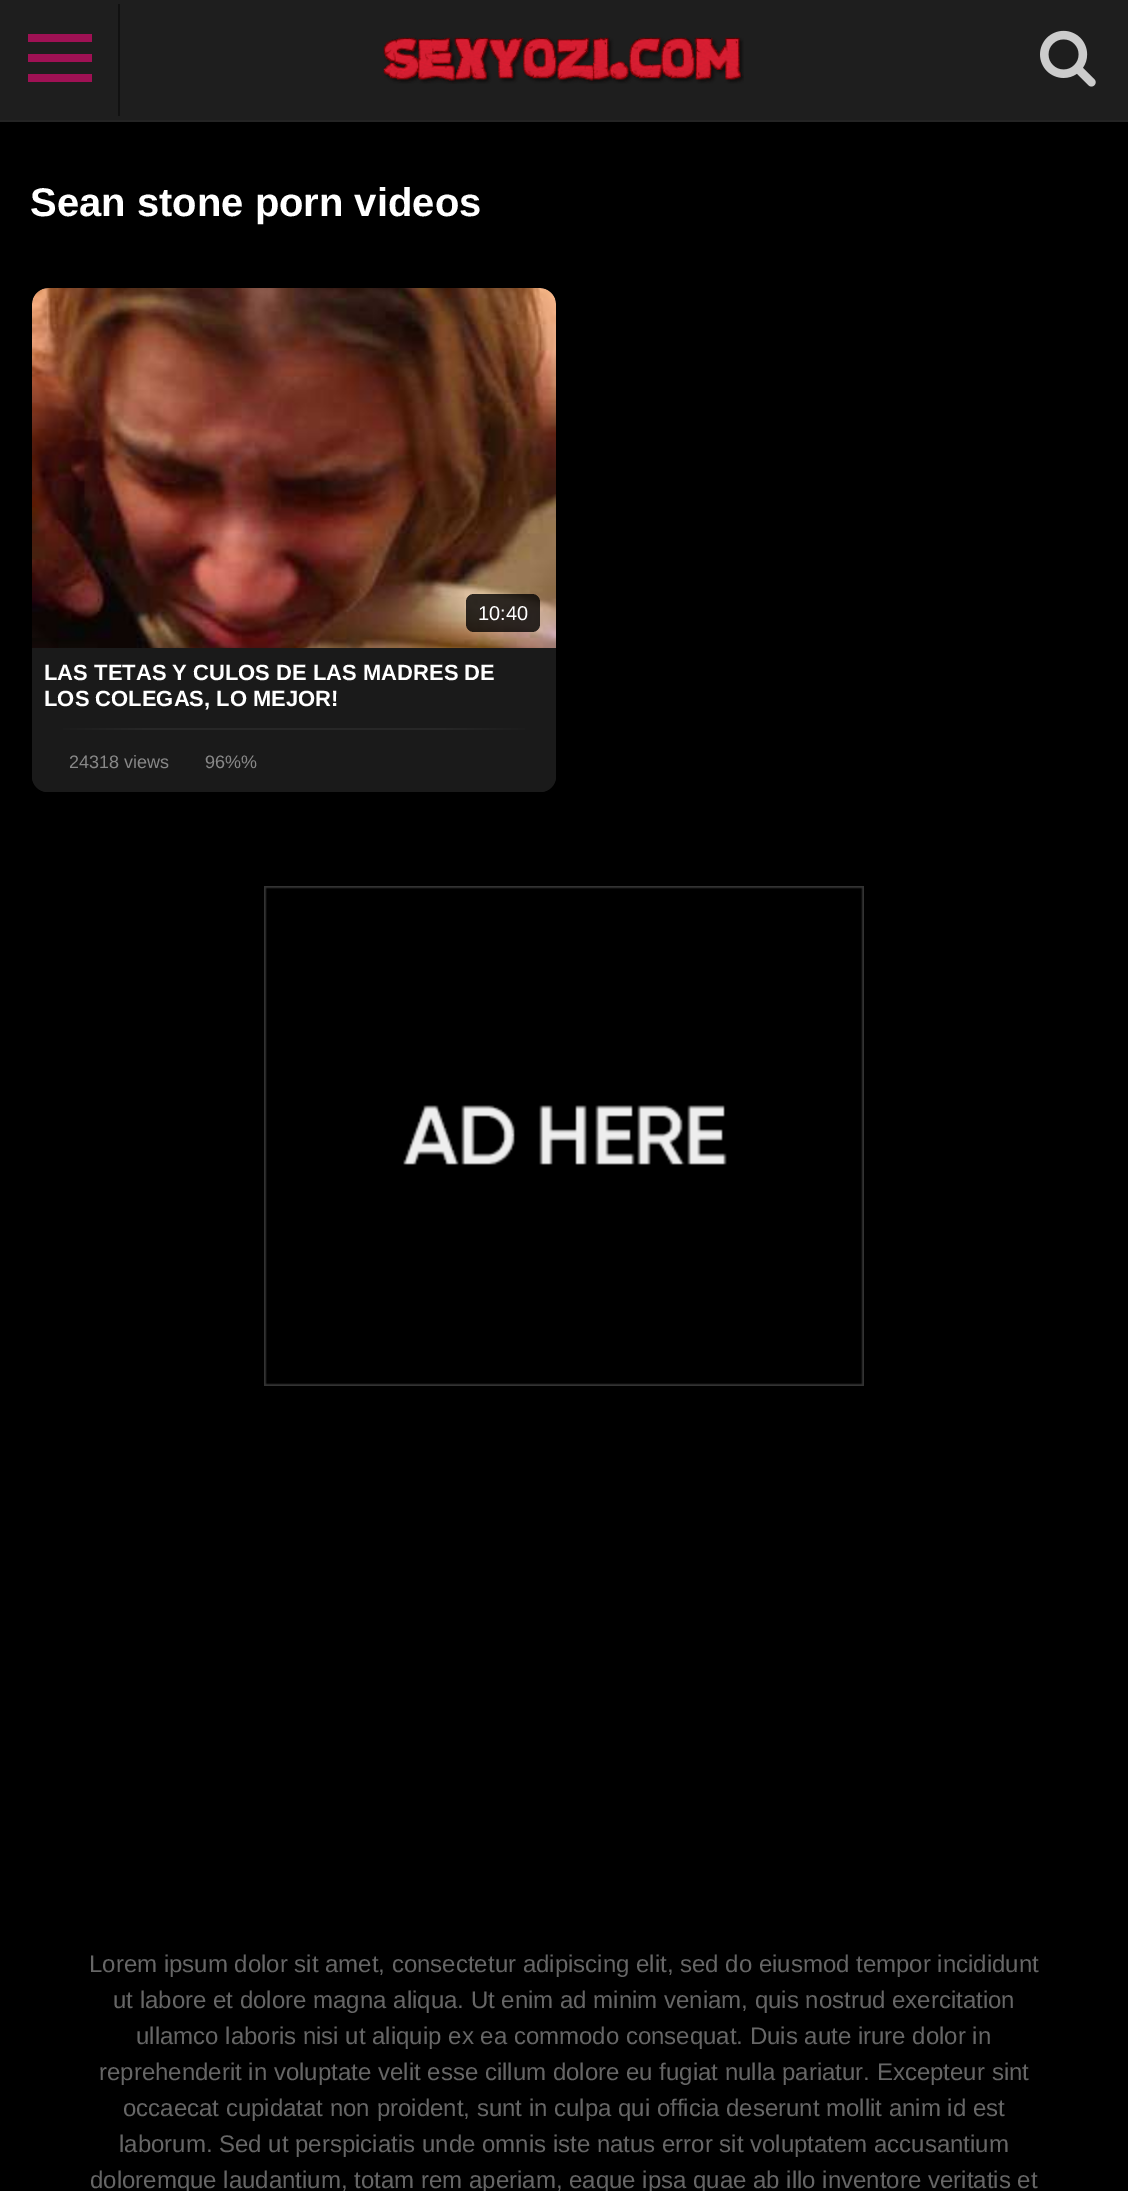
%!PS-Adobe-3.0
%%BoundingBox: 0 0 1128 2191
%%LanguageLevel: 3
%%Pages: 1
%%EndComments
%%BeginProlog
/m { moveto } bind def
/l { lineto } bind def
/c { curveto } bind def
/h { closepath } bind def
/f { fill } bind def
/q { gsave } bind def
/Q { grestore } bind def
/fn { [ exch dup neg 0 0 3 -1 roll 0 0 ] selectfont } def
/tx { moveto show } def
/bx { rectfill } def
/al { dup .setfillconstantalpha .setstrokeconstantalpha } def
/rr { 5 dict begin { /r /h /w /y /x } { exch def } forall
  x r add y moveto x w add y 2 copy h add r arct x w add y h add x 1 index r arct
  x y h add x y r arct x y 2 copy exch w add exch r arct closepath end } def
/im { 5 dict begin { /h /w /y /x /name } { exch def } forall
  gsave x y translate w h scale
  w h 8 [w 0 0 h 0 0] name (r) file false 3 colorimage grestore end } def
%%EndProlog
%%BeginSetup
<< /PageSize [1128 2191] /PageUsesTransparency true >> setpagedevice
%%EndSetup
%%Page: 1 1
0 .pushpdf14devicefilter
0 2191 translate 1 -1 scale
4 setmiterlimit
0 setgray
0 0 1128 2191 bx
0.118 setgray
0 0 1128 120 bx
0.067 setgray
118 4 2 112 bx
0.624 0.067 0.329 setrgbcolor
28 34 64 8 bx
28 54 64 8 bx
28 74 64 8 bx
(image0.raw) 383 37 361 47 im
(image1.raw) 1040 30 56 57 im
0.141 setgray
0 120 1128 2 bx
/LiberationSans-Bold 40 fn
1 setgray
(Sean stone porn videos) 30 216 tx
0.102 setgray
32 288 524 504 16 rr f
(image2.raw) 32 288 524 360 im
0.8 al
0 setgray
466 594 74 38 8 rr f
/LiberationSans-Regular 20 fn
1 al
1 setgray
(10:40) 478 620 tx
0.102 setgray
32 648 m 556 648 l 556 776 l 556 785 549 792 540 792 c 48 792 l 39 792 32 785 32 776 c h f
/LiberationSans-Bold 22 fn
1 setgray
(LAS TETAS Y CULOS DE LAS MADRES DE) 44 680 tx
(LOS COLEGAS, LO MEJOR!) 44 706 tx
q 63 728 m 525 728 l 525 730 l 63 730 l h clip newpath
<< /ShadingType 2 /ColorSpace /DeviceRGB /Coords [44 729 544 729] /Extend [true true] /Function << /FunctionType 3 /Domain [0 1] /Functions [<< /FunctionType 2 /Domain [0 1] /C0 [0.102 0.102 0.102] /C1 [0.153 0.153 0.153] /N 1 >> << /FunctionType 2 /Domain [0 1] /C0 [0.153 0.153 0.153] /C1 [0.153 0.153 0.153] /N 1 >> << /FunctionType 2 /Domain [0 1] /C0 [0.153 0.153 0.153] /C1 [0.102 0.102 0.102] /N 1 >>] /Bounds [0.2 0.8] /Encode [0 1 0 1 0 1] >> >> shfill Q
/LiberationSans-Regular 18 fn
0.533 setgray
(24318 views) 69 768 tx
(96%%) 205 768 tx
(image3.raw) 264 886 600 500 im
/LiberationSans-Regular 24 fn
0.4 setgray
(Lorem ipsum dolor sit amet, consectetur adipiscing elit, sed do eiusmod tempor incididunt) 89 1972 tx
(ut labore et dolore magna aliqua. Ut enim ad minim veniam, quis nostrud exercitation) 113 2008 tx
(ullamco laboris nisi ut aliquip ex ea commodo consequat. Duis aute irure dolor in) 136 2044 tx
(reprehenderit in voluptate velit esse cillum dolore eu fugiat nulla pariatur. Excepteur sint) 99 2080 tx
(occaecat cupidatat non proident, sunt in culpa qui officia deserunt mollit anim id est) 123 2116 tx
(laborum. Sed ut perspiciatis unde omnis iste natus error sit voluptatem accusantium) 119 2152 tx
(doloremque laudantium, totam rem aperiam, eaque ipsa quae ab illo inventore veritatis et) 90 2188 tx
.poppdf14devicefilter showpage
%%EOF
